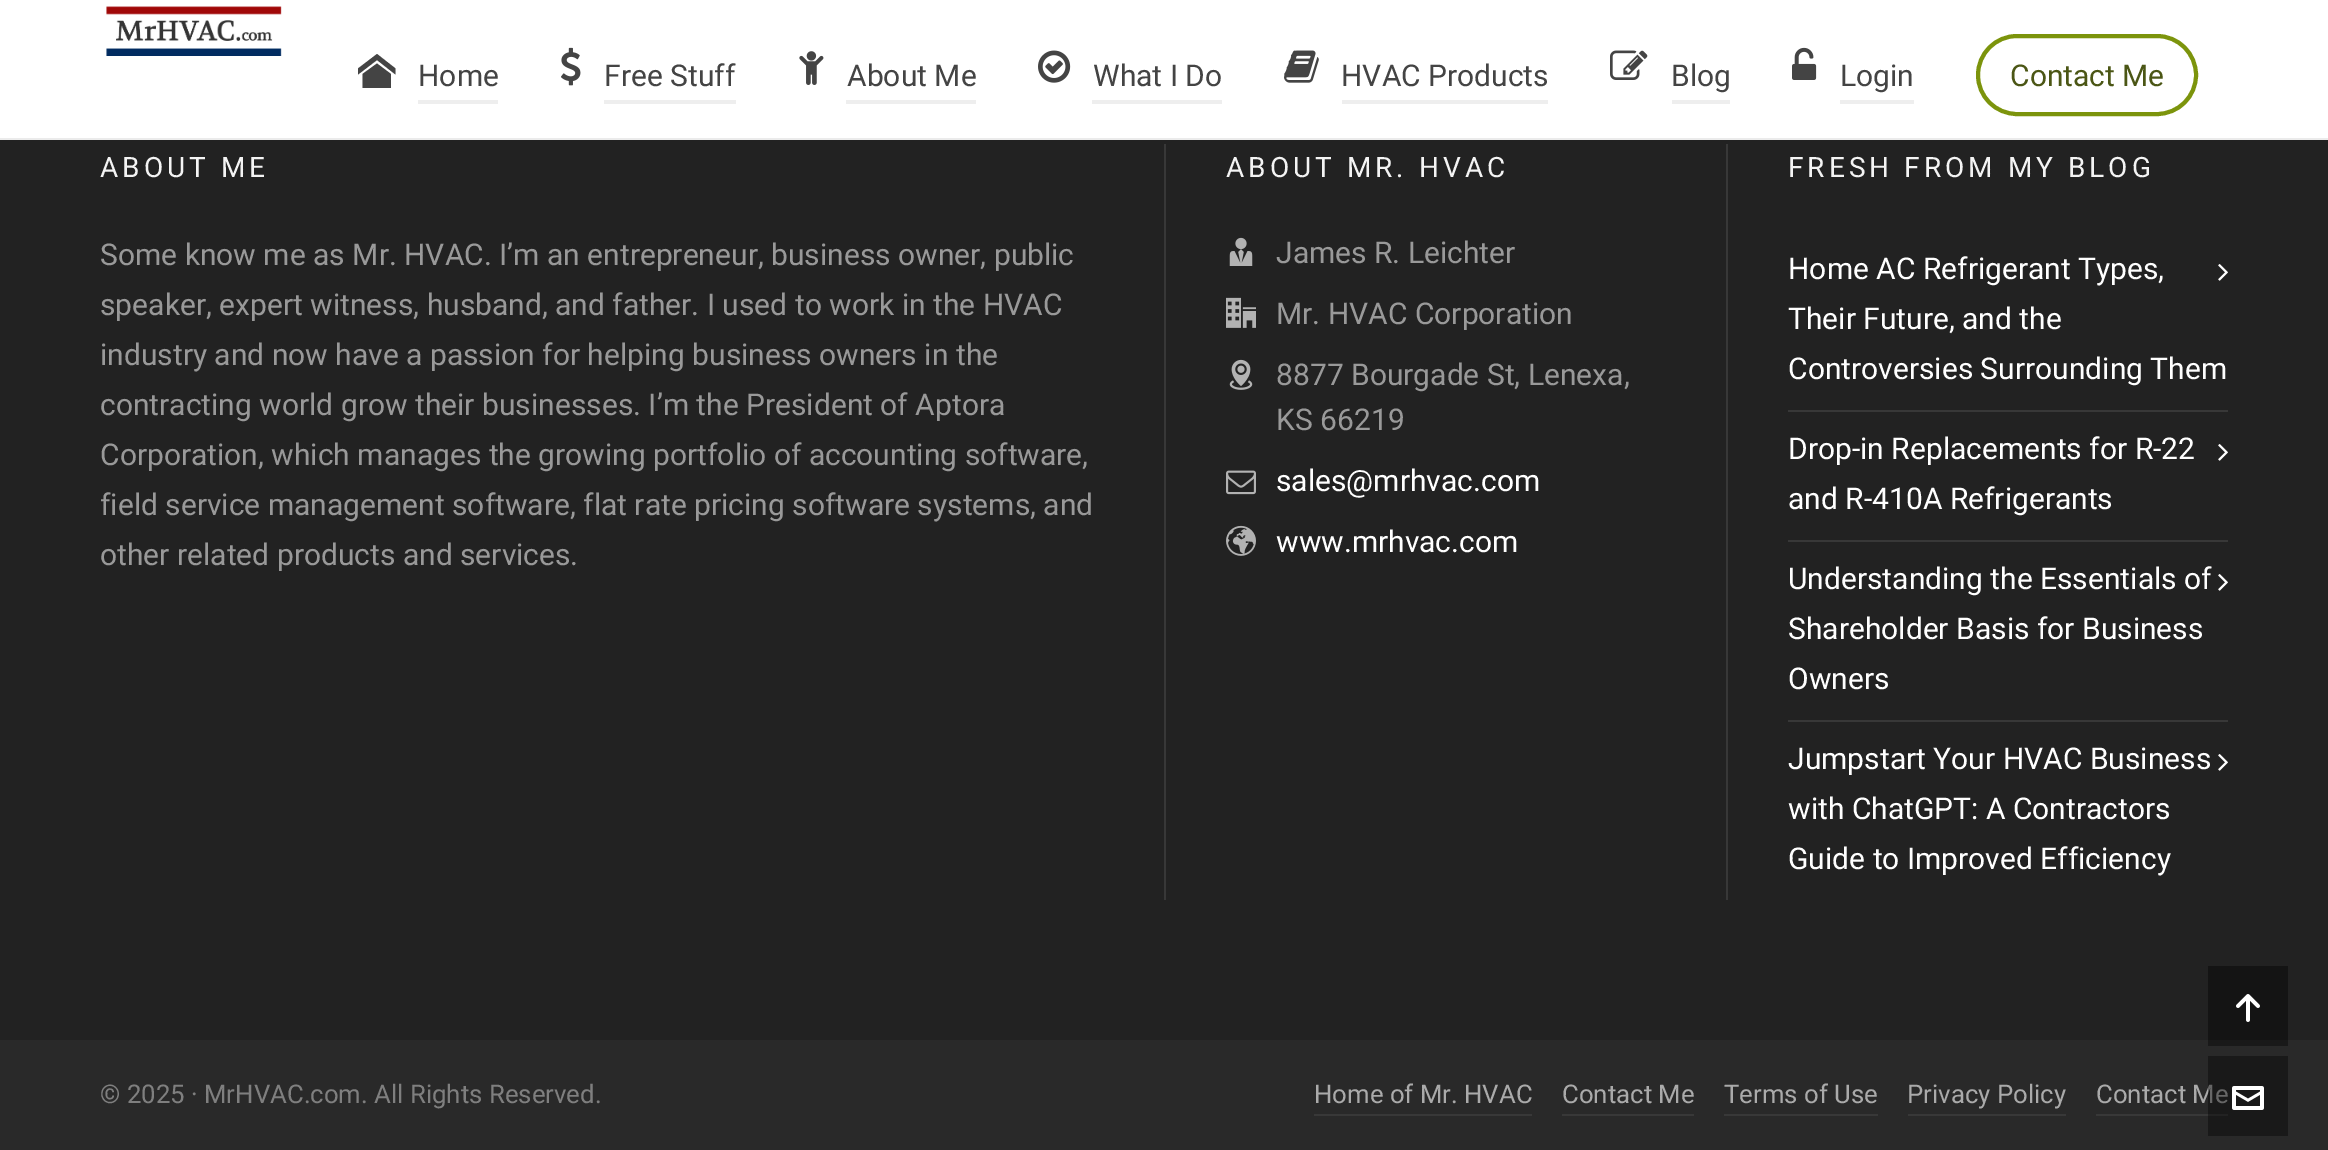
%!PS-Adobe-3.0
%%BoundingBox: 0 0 2328 1150
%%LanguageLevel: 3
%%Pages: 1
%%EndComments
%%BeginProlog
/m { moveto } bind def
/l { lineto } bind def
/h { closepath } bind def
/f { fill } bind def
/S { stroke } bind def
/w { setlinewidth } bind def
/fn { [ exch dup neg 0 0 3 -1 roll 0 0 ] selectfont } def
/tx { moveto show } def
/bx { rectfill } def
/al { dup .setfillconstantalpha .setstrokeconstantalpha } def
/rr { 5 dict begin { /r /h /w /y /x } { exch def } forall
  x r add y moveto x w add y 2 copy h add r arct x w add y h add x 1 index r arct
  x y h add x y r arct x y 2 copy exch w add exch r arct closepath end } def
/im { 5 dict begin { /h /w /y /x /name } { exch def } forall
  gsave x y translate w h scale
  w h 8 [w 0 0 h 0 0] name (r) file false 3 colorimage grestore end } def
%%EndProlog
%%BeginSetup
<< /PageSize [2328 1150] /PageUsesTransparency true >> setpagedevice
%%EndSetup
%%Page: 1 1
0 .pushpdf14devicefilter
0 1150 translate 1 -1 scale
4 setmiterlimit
0.133 setgray
0 0 2328 1150 bx
1 setgray
0 0 2328 138 bx
0.922 setgray
0 138 2328 2 bx
(image0.raw) 106 6 176 50 im
0.267 setgray
395.5 74.5 m 377 60 l 358 74.5 l 358 68.5 l 377 54 l 395.5 68.5 l h 391 74 m 391 88 l 362.5 88 l 362.5 74 l 377 63.5 l h f
/Roboto-Regular 30 fn
(Home) 418 86 tx
0.933 setgray
418 100 80 4 bx
(image1.raw) 561 47 20 39 im
0.267 setgray
(Free Stuff) 604 86 tx
0.933 setgray
604 100 132 4 bx
(image2.raw) 799 51 25 34 im
0.267 setgray
(About Me) 847 86 tx
0.933 setgray
846 100 130 4 bx
(image3.raw) 1038 50 33 33 im
0.267 setgray
(What I Do) 1093 86 tx
0.933 setgray
1092 100 130 4 bx
(image4.raw) 1284 50 35 33 im
0.267 setgray
(HVAC Products) 1341 86 tx
0.933 setgray
1342 100 206 4 bx
(image5.raw) 1610 50 38 30 im
0.267 setgray
(Blog) 1671 86 tx
0.933 setgray
1672 100 58 4 bx
(image6.raw) 1792 47 25 33 im
0.267 setgray
(Login) 1840 86 tx
0.933 setgray
1840 100 74 4 bx
0.486 0.58 0.047 setrgbcolor
4 w
1978 36 218 78 39 rr S
0.294 0.337 0.082 setrgbcolor
(Contact Me) 2010 86 tx
0.078 setgray
2208 966 80 74 bx
/Roboto-Regular 28 fn
0.957 setgray
100 177 m 4 0 (ABOUT ME) ashow
/Roboto-Regular 30 fn
0.6 setgray
(Some know me as Mr. HVAC. I’m an entrepreneur, business owner, public) 100 265 tx
(speaker, expert witness, husband, and father. I used to work in the HVAC) 100 315 tx
(industry and now have a passion for helping business owners in the) 100 365 tx
(contracting world grow their businesses. I’m the President of Aptora) 100 415 tx
(Corporation, which manages the growing portfolio of accounting software,) 100 465 tx
(field service management software, flat rate pricing software systems, and) 100 515 tx
(other related products and services.) 100 565 tx
0.22 setgray
1164 144 2 756 bx
/Roboto-Regular 28 fn
0.957 setgray
1226 177 m 4 0 (ABOUT MR. HVAC) ashow
(image7.raw) 1229 237 24 29 im
/Roboto-Regular 30 fn
0.6 setgray
(James R. Leichter) 1276 263 tx
(image8.raw) 1226 297 30 31 im
(Mr. HVAC Corporation) 1276 324 tx
(image9.raw) 1229 359 24 31 im
(8877 Bourgade St, Lenexa,) 1276 385 tx
(KS 66219) 1276 430 tx
(image10.raw) 1226 470 30 25 im
1 setgray
(sales@mrhvac.com) 1276 491 tx
(image11.raw) 1226 525 30 31 im
(www.mrhvac.com) 1276 552 tx
0.22 setgray
1726 144 2 756 bx
/Roboto-Regular 28 fn
0.957 setgray
1788 177 m 4 0 (FRESH FROM MY BLOG) ashow
/Roboto-Regular 30 fn
1 setgray
(Home AC Refrigerant Types,) 1788 279 tx
(image12.raw) 2218 264 10 17 im
(Their Future, and the) 1788 329 tx
(Controversies Surrounding Them) 1788 379 tx
0.22 setgray
1788 410 440 2 bx
1 setgray
(Drop-in Replacements for R-22) 1788 459 tx
(image12.raw) 2218 444 10 17 im
(and R-410A Refrigerants) 1788 509 tx
0.22 setgray
1788 540 440 2 bx
1 setgray
(Understanding the Essentials of) 1788 589 tx
(image12.raw) 2218 574 10 17 im
(Shareholder Basis for Business) 1788 639 tx
(Owners) 1788 689 tx
0.22 setgray
1788 720 440 2 bx
1 setgray
(Jumpstart Your HVAC Business) 1788 769 tx
(image12.raw) 2218 754 10 17 im
(with ChatGPT: A Contractors) 1788 819 tx
(Guide to Improved Efficiency) 1788 869 tx
(image13.raw) 2236 994 24 28 im
0.161 setgray
0 1040 2328 110 bx
0.098 setgray
2208 1040 80 6 bx
/Roboto-Regular 25.75 fn
0.498 setgray
(© 2025 · MrHVAC.com. All Rights Reserved.) 100 1103 tx
0.667 setgray
(Home of Mr. HVAC) 1314 1103 tx
0.22 setgray
1314 1114 218 2 bx
0.667 setgray
(Contact Me) 1562 1103 tx
0.22 setgray
1562 1114 132 2 bx
0.667 setgray
(Terms of Use) 1724 1103 tx
0.22 setgray
1724 1114 154 2 bx
0.667 setgray
(Privacy Policy) 1907 1103 tx
0.22 setgray
1908 1114 158 2 bx
0.667 setgray
(Contact Me) 2096 1103 tx
0.22 setgray
2096 1114 132 2 bx
0.4 al
0 setgray
2208 1056 80 80 bx
1 al
(image14.raw) 2232 1086 32 24 im
.poppdf14devicefilter showpage
%%EOF
